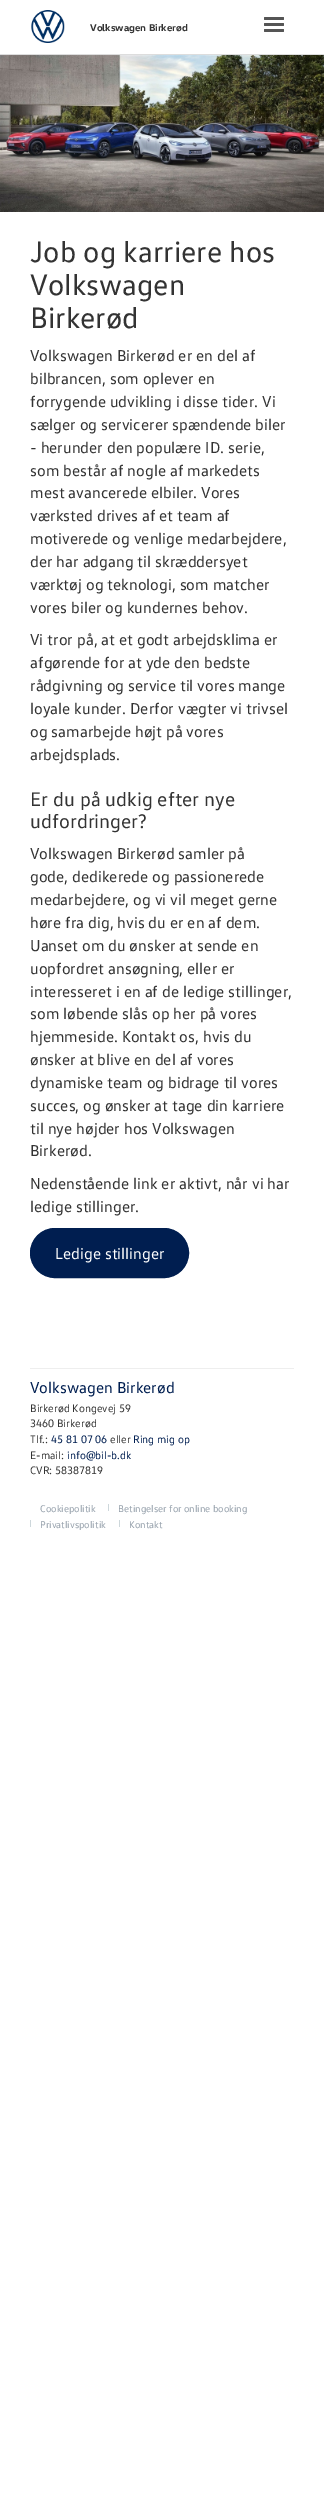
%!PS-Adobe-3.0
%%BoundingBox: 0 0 324 2494
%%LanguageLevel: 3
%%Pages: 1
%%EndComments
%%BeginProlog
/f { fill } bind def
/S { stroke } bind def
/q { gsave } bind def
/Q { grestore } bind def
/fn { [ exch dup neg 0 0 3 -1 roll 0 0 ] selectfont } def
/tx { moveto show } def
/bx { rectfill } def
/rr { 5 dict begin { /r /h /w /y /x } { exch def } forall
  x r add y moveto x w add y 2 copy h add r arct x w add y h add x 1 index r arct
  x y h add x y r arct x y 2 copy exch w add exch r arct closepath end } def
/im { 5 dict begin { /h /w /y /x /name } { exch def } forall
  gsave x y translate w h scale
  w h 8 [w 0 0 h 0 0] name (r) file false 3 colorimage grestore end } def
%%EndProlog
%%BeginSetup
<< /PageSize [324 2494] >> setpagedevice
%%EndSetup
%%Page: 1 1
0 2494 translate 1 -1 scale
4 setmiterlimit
1 setgray
0 0 324 2494 bx
0.867 setgray
0 54 324 1 bx
(image0.raw) 31 10 34 33 im
/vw-Bold 10 fn
0.2 setgray
(Volkswagen Birkerød) 90 31 tx
0.333 setgray
264 17 20 3 1 rr f
264 23 20 3 1 rr f
264 29 20 3 1 rr f
(image1.raw) 0 55 324 157 im
/vw-Regular 30 fn
0.2 setgray
(Job og karriere hos) 30 262 tx
(Volkswagen) 30 295 tx
(Birkerød) 30 328 tx
/vw-Regular 16 fn
(Volkswagen Birkerød er en del af) 30 361 tx
(bilbrancen, som oplever en) 30 384 tx
(forrygende udvikling i disse tider. Vi) 30 407 tx
(sælger og servicerer spændende biler) 30 430 tx
(- herunder den populære ID. serie,) 30 453 tx
(som består af nogle af markedets) 30 476 tx
(mest avancerede elbiler. Vores) 30 498 tx
(værksted drives af et team af) 30 521 tx
(motiverede og venlige medarbejdere,) 30 544 tx
(der har adgang til skræddersyet) 30 567 tx
(værktøj og teknologi, som matcher) 30 590 tx
(vores biler og kundernes behov.) 30 613 tx
(Vi tror på, at et godt arbejdsklima er) 30 645 tx
(afgørende for at yde den bedste) 30 668 tx
(rådgivning og service til vores mange) 30 691 tx
(loyale kunder. Derfor vægter vi trivsel) 30 714 tx
(og samarbejde højt på vores) 30 737 tx
(arbejdsplads.) 30 760 tx
/vw-Regular 20 fn
(Er du på udkig efter nye) 30 806 tx
(udfordringer?) 30 828 tx
/vw-Regular 16 fn
(Volkswagen Birkerød samler på) 30 859 tx
(gode, dedikerede og passionerede) 30 882 tx
(medarbejdere, og vi vil meget gerne) 30 905 tx
(høre fra dig, hvis du er en af dem.) 30 928 tx
(Uanset om du ønsker at sende en) 30 951 tx
(uopfordret ansøgning, eller er) 30 974 tx
(interesseret i en af de ledige stillinger,) 30 997 tx
(som løbende slås op her på vores) 30 1019 tx
(hjemmeside. Kontakt os, hvis du) 30 1042 tx
(ønsker at blive en del af vores) 30 1065 tx
(dynamiske team og bidrage til vores) 30 1088 tx
(succes, og ønsker at tage din karriere) 30 1111 tx
(til nye højder hos Volkswagen) 30 1134 tx
(Birkerød.) 30 1156 tx
(Nedenstående link er aktivt, når vi har) 30 1189 tx
(ledige stillinger.) 30 1212 tx
0 0.118 0.314 setrgbcolor
30.5 1228.5 158 49 24.5 rr q f Q
S
1 setgray
(Ledige stillinger) 55 1259 tx
0.933 setgray
30 1368 264 1 bx
0 0.118 0.314 setrgbcolor
(Volkswagen Birkerød) 30 1393 tx
/vw-Regular 11 fn
0.2 setgray
(Birkerød Kongevej 59) 30 1412 tx
(3460 Birkerød) 30 1427 tx
(Tlf.:) 30 1443 tx
0 0.118 0.314 setrgbcolor
(45 81 07 06) 51 1443 tx
0.2 setgray
(eller) 110 1443 tx
0 0.118 0.314 setrgbcolor
(Ring mig op) 133 1443 tx
0.2 setgray
(E-mail:) 30 1459 tx
0 0.118 0.314 setrgbcolor
(info@bil-b.dk) 67 1459 tx
0.2 setgray
(CVR: 58387819) 30 1474 tx
/vw-Regular 10 fn
0.58 0.624 0.667 setrgbcolor
(Cookiepolitik) 40 1512 tx
0.804 0.843 0.859 setrgbcolor
108 1504 1 7 bx
0.58 0.624 0.667 setrgbcolor
(Betingelser for online booking) 118 1512 tx
0.804 0.843 0.859 setrgbcolor
30 1520 1 7 bx
0.58 0.624 0.667 setrgbcolor
(Privatlivspolitik) 40 1528 tx
0.804 0.843 0.859 setrgbcolor
119 1520 1 7 bx
0.58 0.624 0.667 setrgbcolor
(Kontakt) 129 1528 tx
showpage
%%EOF
